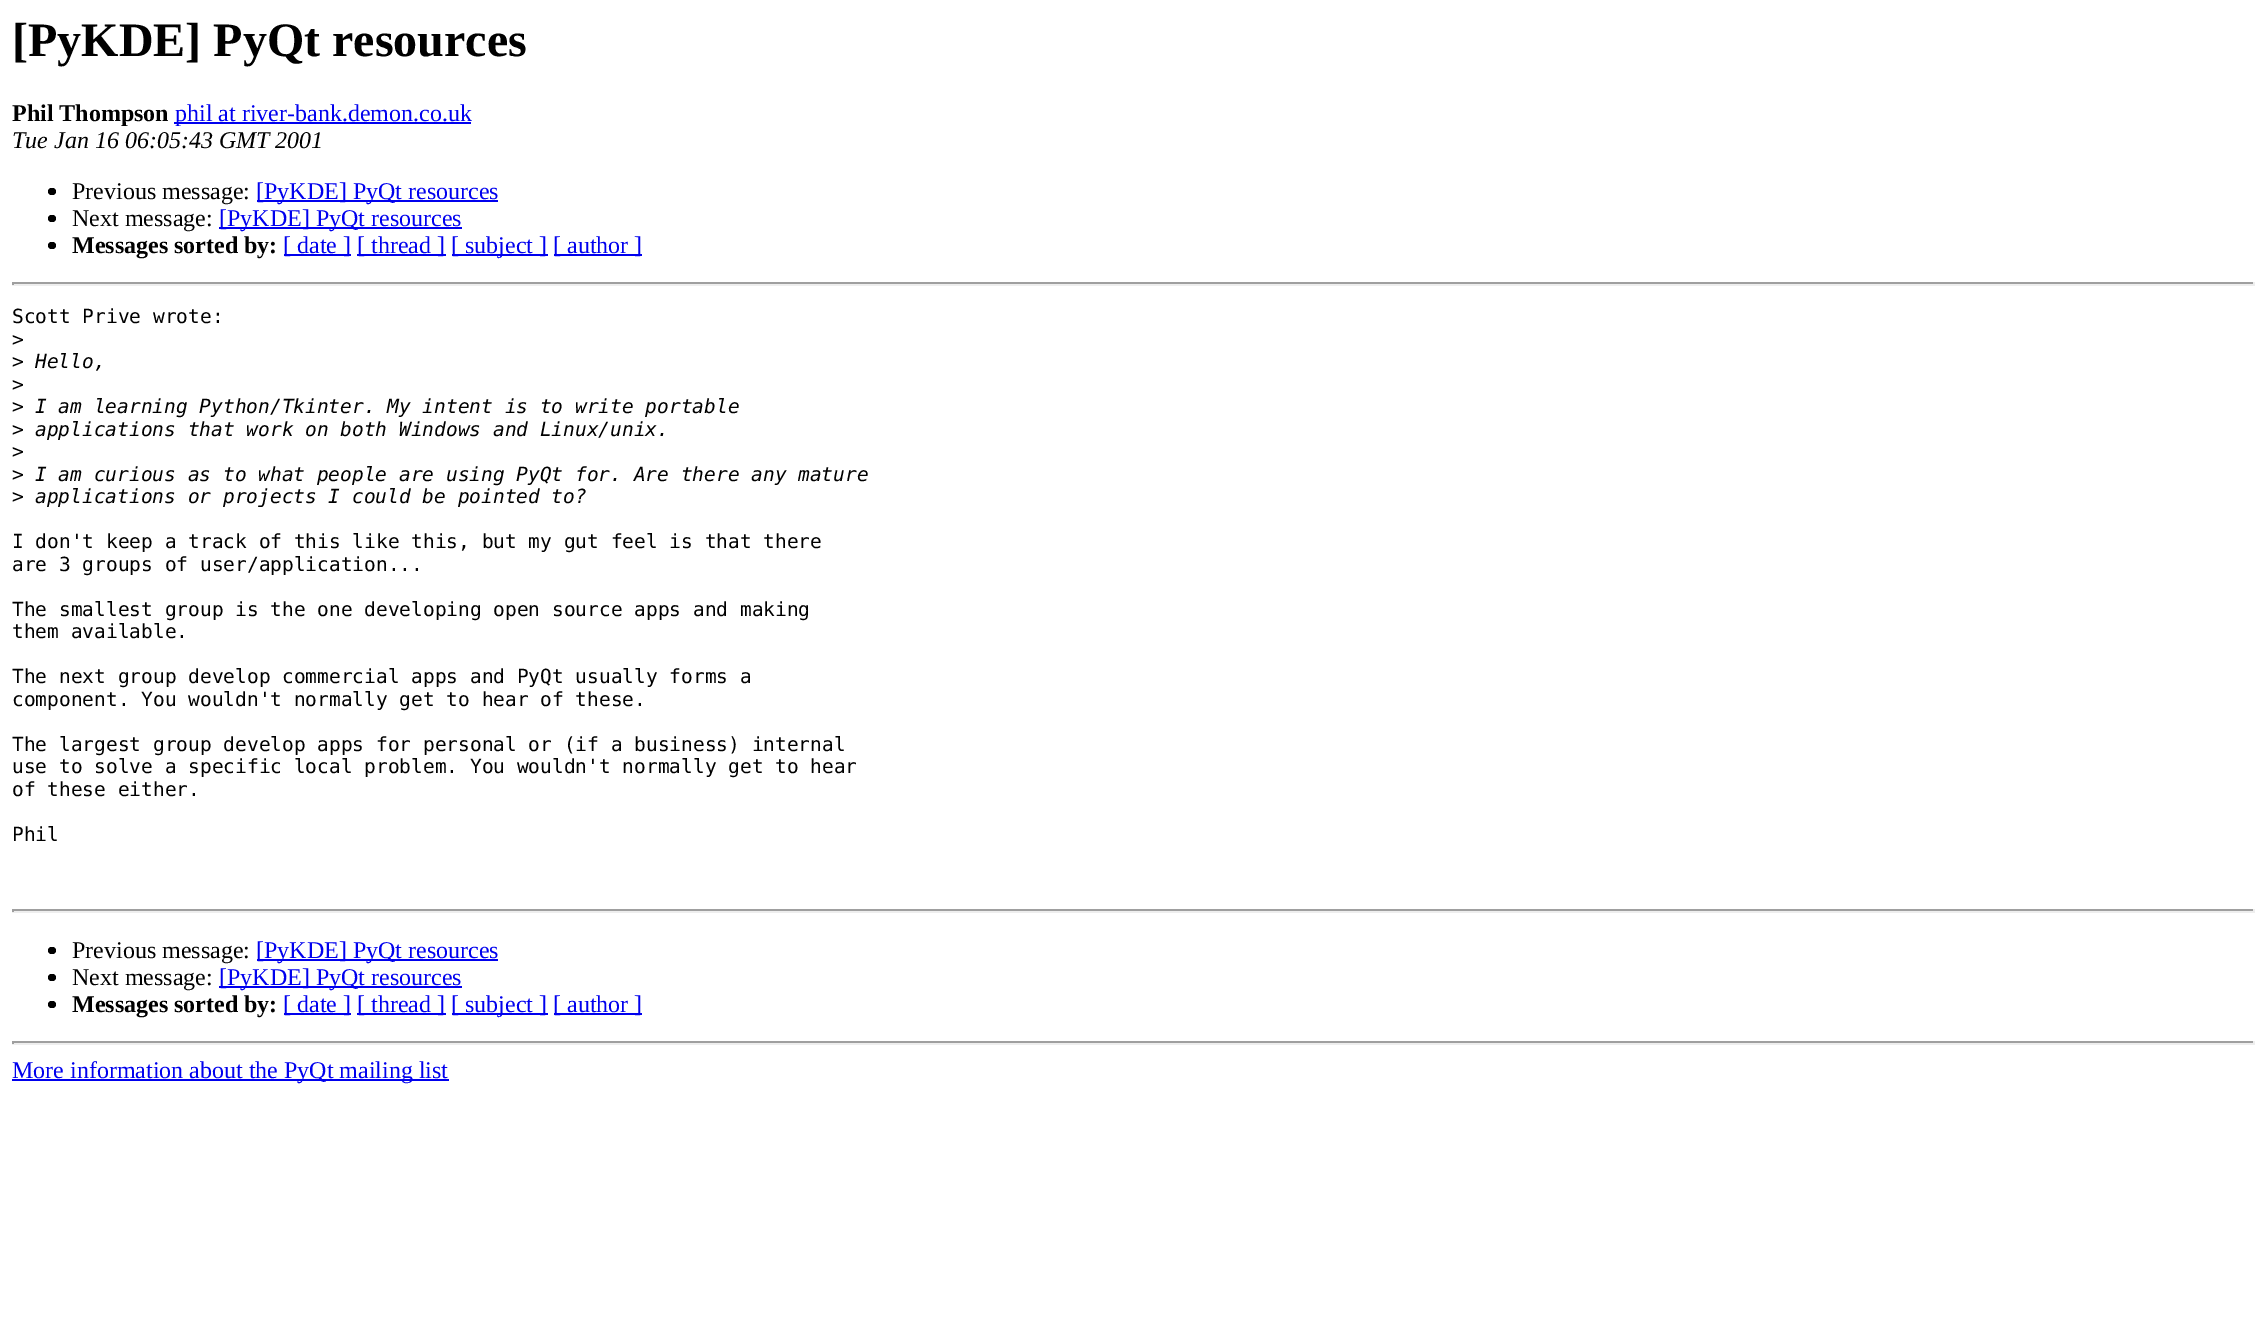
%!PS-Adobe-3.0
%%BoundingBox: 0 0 2266 1327
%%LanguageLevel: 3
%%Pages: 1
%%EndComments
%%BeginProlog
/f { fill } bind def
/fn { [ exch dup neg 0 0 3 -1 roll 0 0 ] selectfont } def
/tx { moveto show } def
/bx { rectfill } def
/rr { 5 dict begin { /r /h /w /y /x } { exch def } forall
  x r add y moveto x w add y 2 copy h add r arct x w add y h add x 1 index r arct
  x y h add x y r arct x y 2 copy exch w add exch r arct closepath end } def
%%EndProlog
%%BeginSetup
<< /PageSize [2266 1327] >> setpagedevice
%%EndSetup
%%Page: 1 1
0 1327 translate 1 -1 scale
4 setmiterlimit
1 setgray
0 0 2266 1327 bx
/LiberationSerif-Bold 48 fn
0 setgray
([PyKDE] PyQt resources) 12 56 tx
/LiberationSerif-Bold 24 fn
(Phil Thompson) 12 121 tx
0 0 0.933 setrgbcolor
174 122 297 2 bx
/LiberationSerif-Regular 24 fn
(phil at river-bank.demon.co.uk) 175 121 tx
/LiberationSerif-Italic 24 fn
0 setgray
(Tue Jan 16 06:05:43 GMT 2001) 12 148 tx
48 188 8 7 3.5 rr f
/LiberationSerif-Regular 24 fn
(Previous message:) 72 199 tx
0 0 0.933 setrgbcolor
257 200 241 2 bx
([PyKDE] PyQt resources) 256 199 tx
0 setgray
48 215 8 7 3.5 rr f
(Next message:) 72 226 tx
0 0 0.933 setrgbcolor
219 227 243 2 bx
([PyKDE] PyQt resources) 219 226 tx
0 setgray
48 242 8 7 3.5 rr f
/LiberationSerif-Bold 24 fn
(Messages sorted by:) 72 253 tx
0 0 0.933 setrgbcolor
284 254 67 2 bx
/LiberationSerif-Regular 24 fn
([ date ]) 283 253 tx
357 254 89 2 bx
([ thread ]) 357 253 tx
452 254 96 2 bx
([ subject ]) 451 253 tx
554 254 88 2 bx
([ author ]) 553 253 tx
0.624 setgray
12 282 2243 2 bx
0.933 setgray
2253 282 2 3 bx
12 284 2243 2 bx
0.624 setgray
12 282 2 3 bx
/DejaVuSansMono-Regular 19.5 fn
0 setgray
(Scott Prive wrote:) 12 323 tx
(>) 12 346 tx
(>) 12 368 tx
/DejaVuSansMono-Italic 19.5 fn
(Hello,) 35 368 tx
/DejaVuSansMono-Regular 19.5 fn
(>) 12 391 tx
(>) 12 413 tx
/DejaVuSansMono-Italic 19.5 fn
(I am learning Python/Tkinter. My intent is to write portable) 35 413 tx
/DejaVuSansMono-Regular 19.5 fn
(>) 12 436 tx
/DejaVuSansMono-Italic 19.5 fn
(applications that work on both Windows and Linux/unix.) 35 436 tx
/DejaVuSansMono-Regular 19.5 fn
(>) 12 458 tx
(>) 12 481 tx
/DejaVuSansMono-Italic 19.5 fn
(I am curious as to what people are using PyQt for. Are there any mature) 35 481 tx
/DejaVuSansMono-Regular 19.5 fn
(>) 12 503 tx
/DejaVuSansMono-Italic 19.5 fn
(applications or projects I could be pointed to?) 35 503 tx
/DejaVuSansMono-Regular 19.5 fn
(I don't keep a track of this like this, but my gut feel is that there) 12 548 tx
(are 3 groups of user/application...) 12 571 tx
(The smallest group is the one developing open source apps and making) 12 616 tx
(them available.) 12 638 tx
(The next group develop commercial apps and PyQt usually forms a) 12 683 tx
(component. You wouldn't normally get to hear of these.) 12 706 tx
(The largest group develop apps for personal or \(if a business\) internal) 12 751 tx
(use to solve a specific local problem. You wouldn't normally get to hear) 12 773 tx
(of these either.) 12 796 tx
(Phil) 12 841 tx
0.624 setgray
12 909 2243 2 bx
0.933 setgray
2253 909 2 3 bx
12 911 2243 2 bx
0.624 setgray
12 909 2 3 bx
0 setgray
48 947 8 7 3.5 rr f
/LiberationSerif-Regular 24 fn
(Previous message:) 72 958 tx
0 0 0.933 setrgbcolor
257 959 241 2 bx
([PyKDE] PyQt resources) 256 958 tx
0 setgray
48 974 8 7 3.5 rr f
(Next message:) 72 985 tx
0 0 0.933 setrgbcolor
219 986 243 2 bx
([PyKDE] PyQt resources) 219 985 tx
0 setgray
48 1001 8 7 3.5 rr f
/LiberationSerif-Bold 24 fn
(Messages sorted by:) 72 1012 tx
0 0 0.933 setrgbcolor
284 1013 67 2 bx
/LiberationSerif-Regular 24 fn
([ date ]) 283 1012 tx
357 1013 89 2 bx
([ thread ]) 357 1012 tx
452 1013 96 2 bx
([ subject ]) 451 1012 tx
554 1013 88 2 bx
([ author ]) 553 1012 tx
0.624 setgray
12 1041 2243 2 bx
0.933 setgray
2253 1041 2 3 bx
12 1043 2243 2 bx
0.624 setgray
12 1041 2 3 bx
0 0 0.933 setrgbcolor
12 1079 437 2 bx
(More information about the PyQt mailing list) 12 1078 tx
showpage
%%EOF
